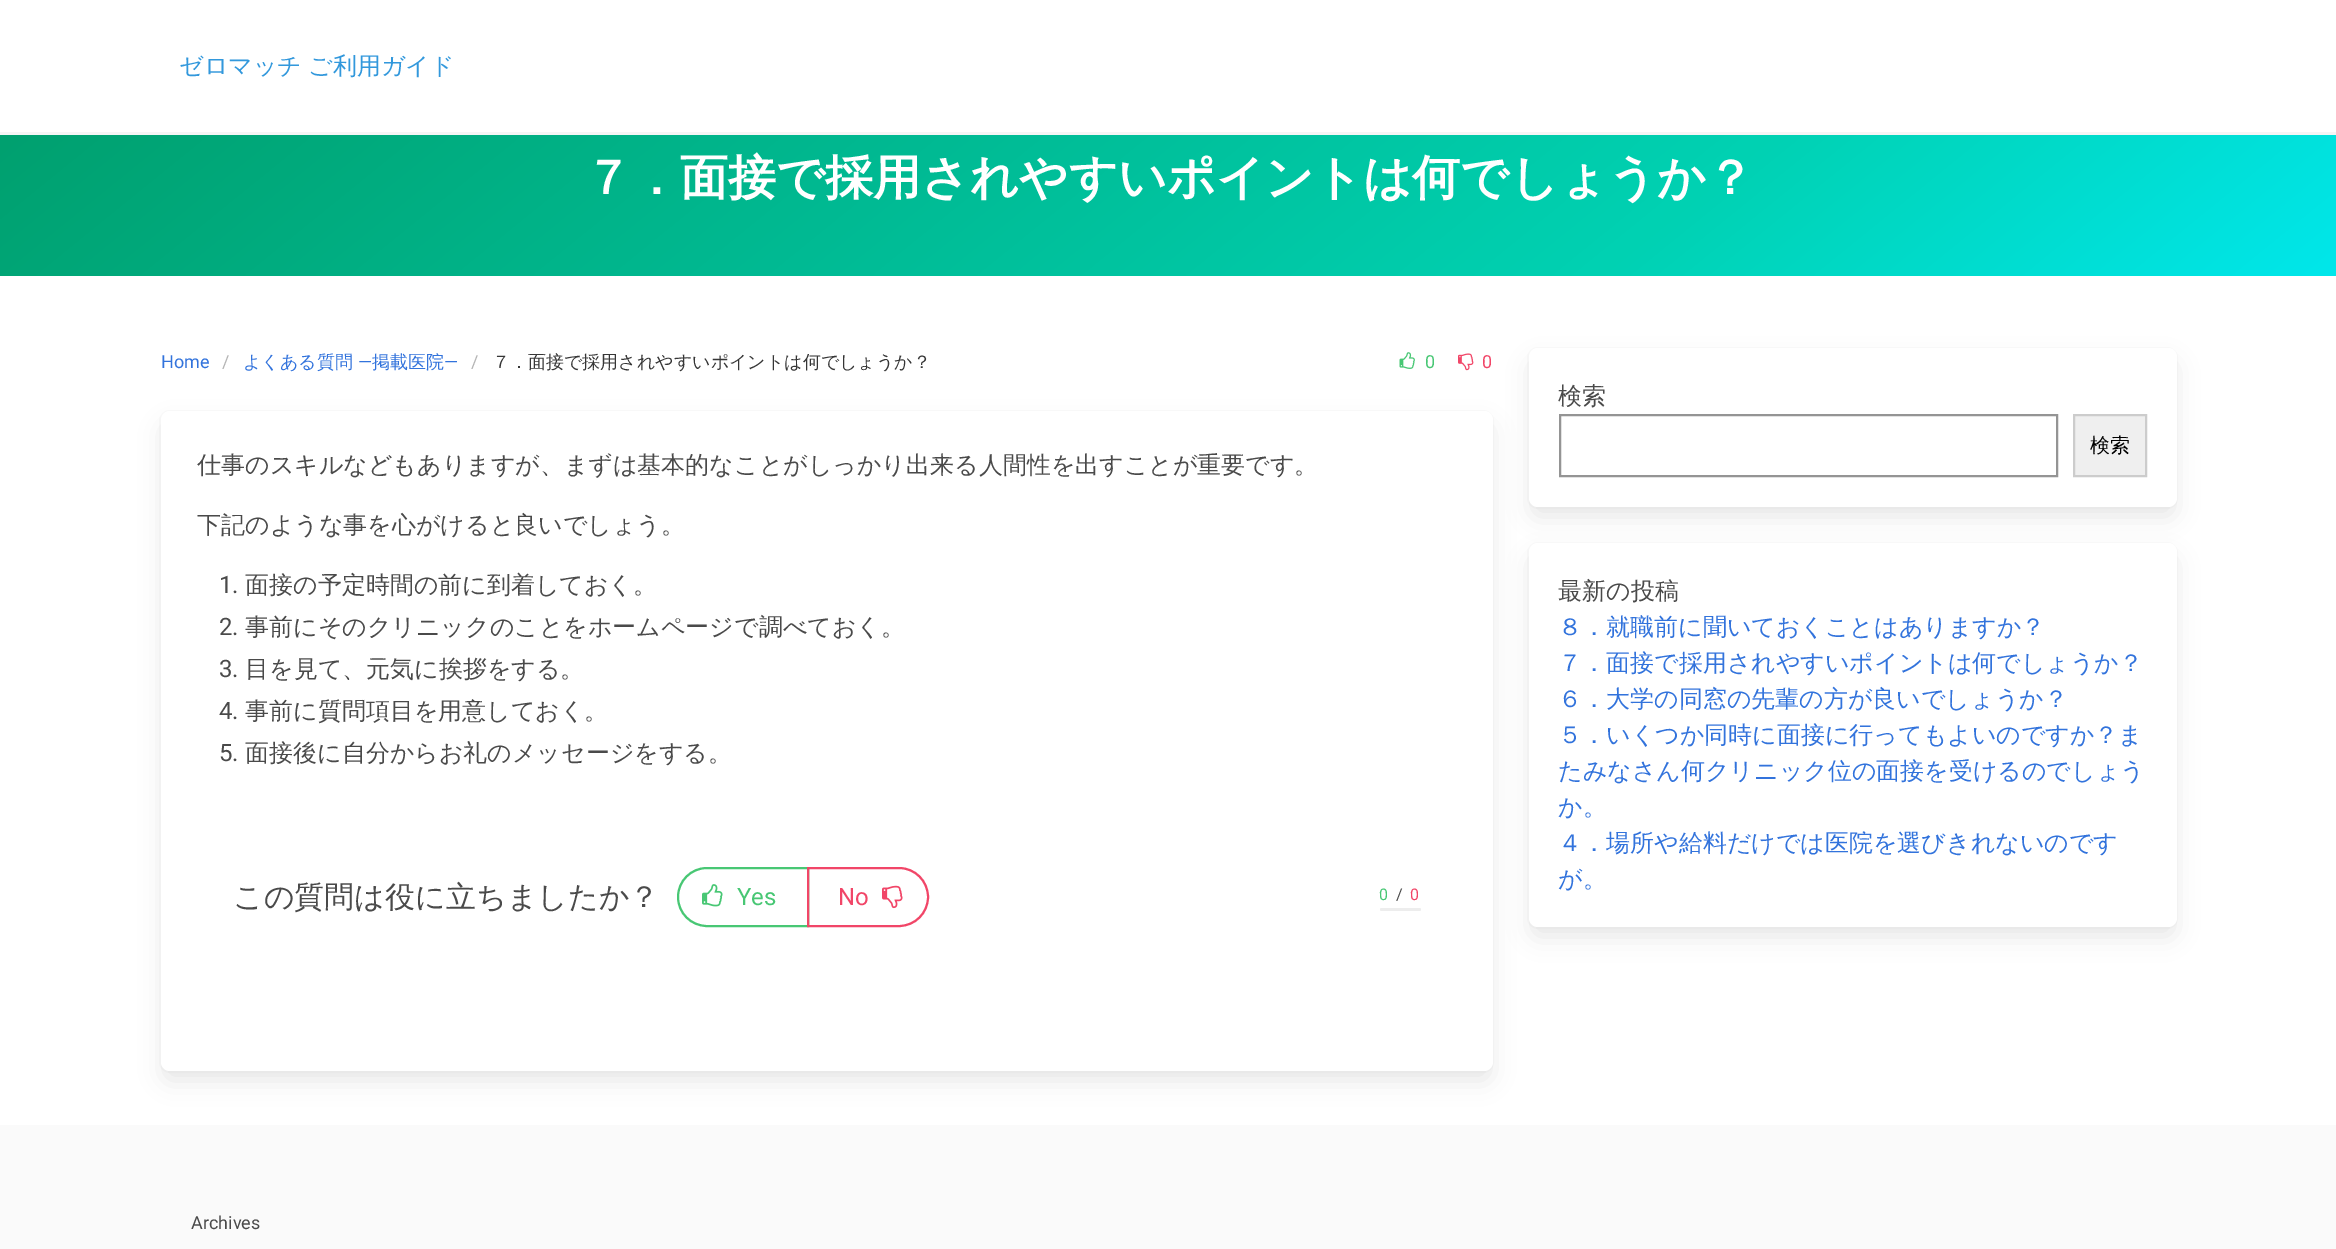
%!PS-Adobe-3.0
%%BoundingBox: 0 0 2336 1249
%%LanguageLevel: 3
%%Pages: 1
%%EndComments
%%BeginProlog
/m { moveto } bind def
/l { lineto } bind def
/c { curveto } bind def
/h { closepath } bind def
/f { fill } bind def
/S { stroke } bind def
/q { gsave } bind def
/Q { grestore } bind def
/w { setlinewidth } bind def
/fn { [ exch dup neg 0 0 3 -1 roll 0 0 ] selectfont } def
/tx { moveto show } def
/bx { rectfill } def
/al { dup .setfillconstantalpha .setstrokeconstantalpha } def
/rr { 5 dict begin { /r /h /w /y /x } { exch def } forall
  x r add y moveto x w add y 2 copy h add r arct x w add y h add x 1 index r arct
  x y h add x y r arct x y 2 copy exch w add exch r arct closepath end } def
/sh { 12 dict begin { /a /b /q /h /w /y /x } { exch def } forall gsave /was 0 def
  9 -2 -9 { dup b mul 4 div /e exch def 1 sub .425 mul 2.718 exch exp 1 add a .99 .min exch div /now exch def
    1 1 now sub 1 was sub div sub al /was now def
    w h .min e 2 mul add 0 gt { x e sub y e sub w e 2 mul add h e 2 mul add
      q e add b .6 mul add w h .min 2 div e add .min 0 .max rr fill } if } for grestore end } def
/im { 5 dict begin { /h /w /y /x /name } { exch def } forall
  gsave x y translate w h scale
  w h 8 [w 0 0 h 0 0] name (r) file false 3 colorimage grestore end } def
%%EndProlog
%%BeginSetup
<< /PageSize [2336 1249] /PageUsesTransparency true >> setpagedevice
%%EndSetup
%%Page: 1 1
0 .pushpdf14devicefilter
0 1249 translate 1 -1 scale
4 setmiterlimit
1 setgray
0 0 2336 1249 bx
0.961 setgray
0 132 2336 3 bx
/WenQuanYiZenHei-Medium 24 fn
0.196 0.596 0.863 setrgbcolor
179 74 m -1 0 32 (ゼロマッチ ご利用ガイド) widthshow
q 0 135 m 2336 135 l 2336 276 l 0 276 l h clip newpath
<< /ShadingType 2 /ColorSpace /DeviceRGB /Coords [657 -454 1680 808] /Extend [true true] /Function << /FunctionType 3 /Domain [0 1] /Functions [<< /FunctionType 2 /Domain [0 1] /C0 [0 0.62 0.424] /C1 [0 0.82 0.698] /N 1 >> << /FunctionType 2 /Domain [0 1] /C0 [0 0.82 0.698] /C1 [0 0.906 0.922] /N 1 >>] /Bounds [0.71] /Encode [0 1 0 1] >> >> shfill Q
/WenQuanYiZenHei-Bold 48 fn
1 setgray
(７．面接で採用されやすいポイントは何でしょうか？) 584 194 tx
/Roboto-Regular 18 fn
0.196 0.451 0.863 setrgbcolor
(Home) 161 368 tx
0.71 setgray
(/) 222 368 tx
/WenQuanYiZenHei-Medium 18 fn
0.196 0.451 0.863 setrgbcolor
(よくある質問) 243 368 tx
/Roboto-Regular 18 fn
(―) 358 368 tx
/WenQuanYiZenHei-Medium 18 fn
(掲載医院) 372 368 tx
/Roboto-Regular 18 fn
(―) 444 368 tx
0.71 setgray
(/) 471 368 tx
/WenQuanYiZenHei-Medium 18 fn
0.212 setgray
(７．面接で採用されやすいポイントは何でしょうか？) 492 368 tx
(image0.raw) 1399 352 16 17 im
/Roboto-Regular 18 fn
0.282 0.78 0.455 setrgbcolor
(0) 1425 368 tx
(image1.raw) 1458 353 16 18 im
0.945 0.275 0.408 setrgbcolor
(0) 1482 368 tx
0.98 setgray
2 w
160 411 1333 661 10 rr S
0.039 setgray
164 426 1326 654 6 12 0.1 sh
1 setgray
161 411 1332 660 9 rr f
/WenQuanYiZenHei-Medium 24 fn
0.29 setgray
(仕事のスキルなどもありますが、まずは基本的なことがしっかり出来る人間性を出すことが重要です。) 197 473 tx
(下記のような事を心がけると良いでしょう。) 197 533 tx
/Roboto-Regular 24 fn
(1.) 219 593 tx
/WenQuanYiZenHei-Medium 24 fn
(面接の予定時間の前に到着しておく。) 245 593 tx
/Roboto-Regular 24 fn
(2.) 219 635 tx
/WenQuanYiZenHei-Medium 24 fn
(事前にそのクリニックのことをホームページで調べておく。) 245 635 tx
/Roboto-Regular 24 fn
(3.) 219 677 tx
/WenQuanYiZenHei-Medium 24 fn
(目を見て、元気に挨拶をする。) 245 677 tx
/Roboto-Regular 24 fn
(4.) 219 719 tx
/WenQuanYiZenHei-Medium 24 fn
(事前に質問項目を用意しておく。) 245 719 tx
/Roboto-Regular 24 fn
(5.) 219 761 tx
/WenQuanYiZenHei-Medium 24 fn
(面接後に自分からお礼のメッセージをする。) 245 761 tx
/WenQuanYiZenHei-Medium 30 fn
(この質問は役に立ちましたか？) 233 907 tx
0.282 0.78 0.455 setrgbcolor
707 868 m 808 868 l 808 926 l 707 926 l 691 926 678 913 678 897 c 678 881 691 868 707 868 c h S
(image2.raw) 702 884 21 23 im
/Roboto-Regular 24 fn
(Yes) 737 905 tx
0.945 0.275 0.408 setrgbcolor
808 868 m 899 868 l 915 868 928 881 928 897 c 928 913 915 926 899 926 c 808 926 l h S
(No) 838 905 tx
(image3.raw) 882 885 21 24 im
/Roboto-Regular 16 fn
0.282 0.78 0.455 setrgbcolor
1379 900 m 2 0 (0) ashow
0.29 setgray
1396 900 m 2 0 (/) ashow
0.945 0.275 0.408 setrgbcolor
1410 900 m 2 0 (0) ashow
0.929 setgray
1380 908 41 3 1.5 rr f
0.98 setgray
1528 348 649 160 10 rr S
0.039 setgray
1532 363 642 153 6 12 0.1 sh
1 setgray
1529 348 648 159 9 rr f
/WenQuanYiZenHei-Medium 24 fn
0.29 setgray
(検索) 1558 404 tx
0.58 setgray
1560 415 497 61 rectstroke
0.937 setgray
2074 415 m 2146 415 l 2146 476 l 2074 476 l h q f Q
0.8 setgray
S
/WenQuanYiZenHei-Medium 20 fn
0 setgray
(検索) 2090 452 tx
0.98 setgray
1528 543 649 385 10 rr S
0.039 setgray
1532 558 642 378 6 12 0.1 sh
1 setgray
1529 543 648 384 9 rr f
/WenQuanYiZenHei-Medium 24 fn
0.29 setgray
(最新の投稿) 1558 599 tx
0.196 0.451 0.863 setrgbcolor
(８．就職前に聞いておくことはありますか？) 1558 635 tx
(７．面接で採用されやすいポイントは何でしょうか？) 1558 671 tx
(６．大学の同窓の先輩の方が良いでしょうか？) 1558 707 tx
(５．いくつか同時に面接に行ってもよいのですか？ま) 1558 743 tx
(たみなさん何クリニック位の面接を受けるのでしょう) 1558 779 tx
(か。) 1558 815 tx
(４．場所や給料だけでは医院を選びきれないのです) 1558 851 tx
(が。) 1558 887 tx
0.98 setgray
0 1125 2336 124 bx
/Roboto-Regular 18 fn
0.29 setgray
(Archives) 191 1229 tx
.poppdf14devicefilter showpage
%%EOF
